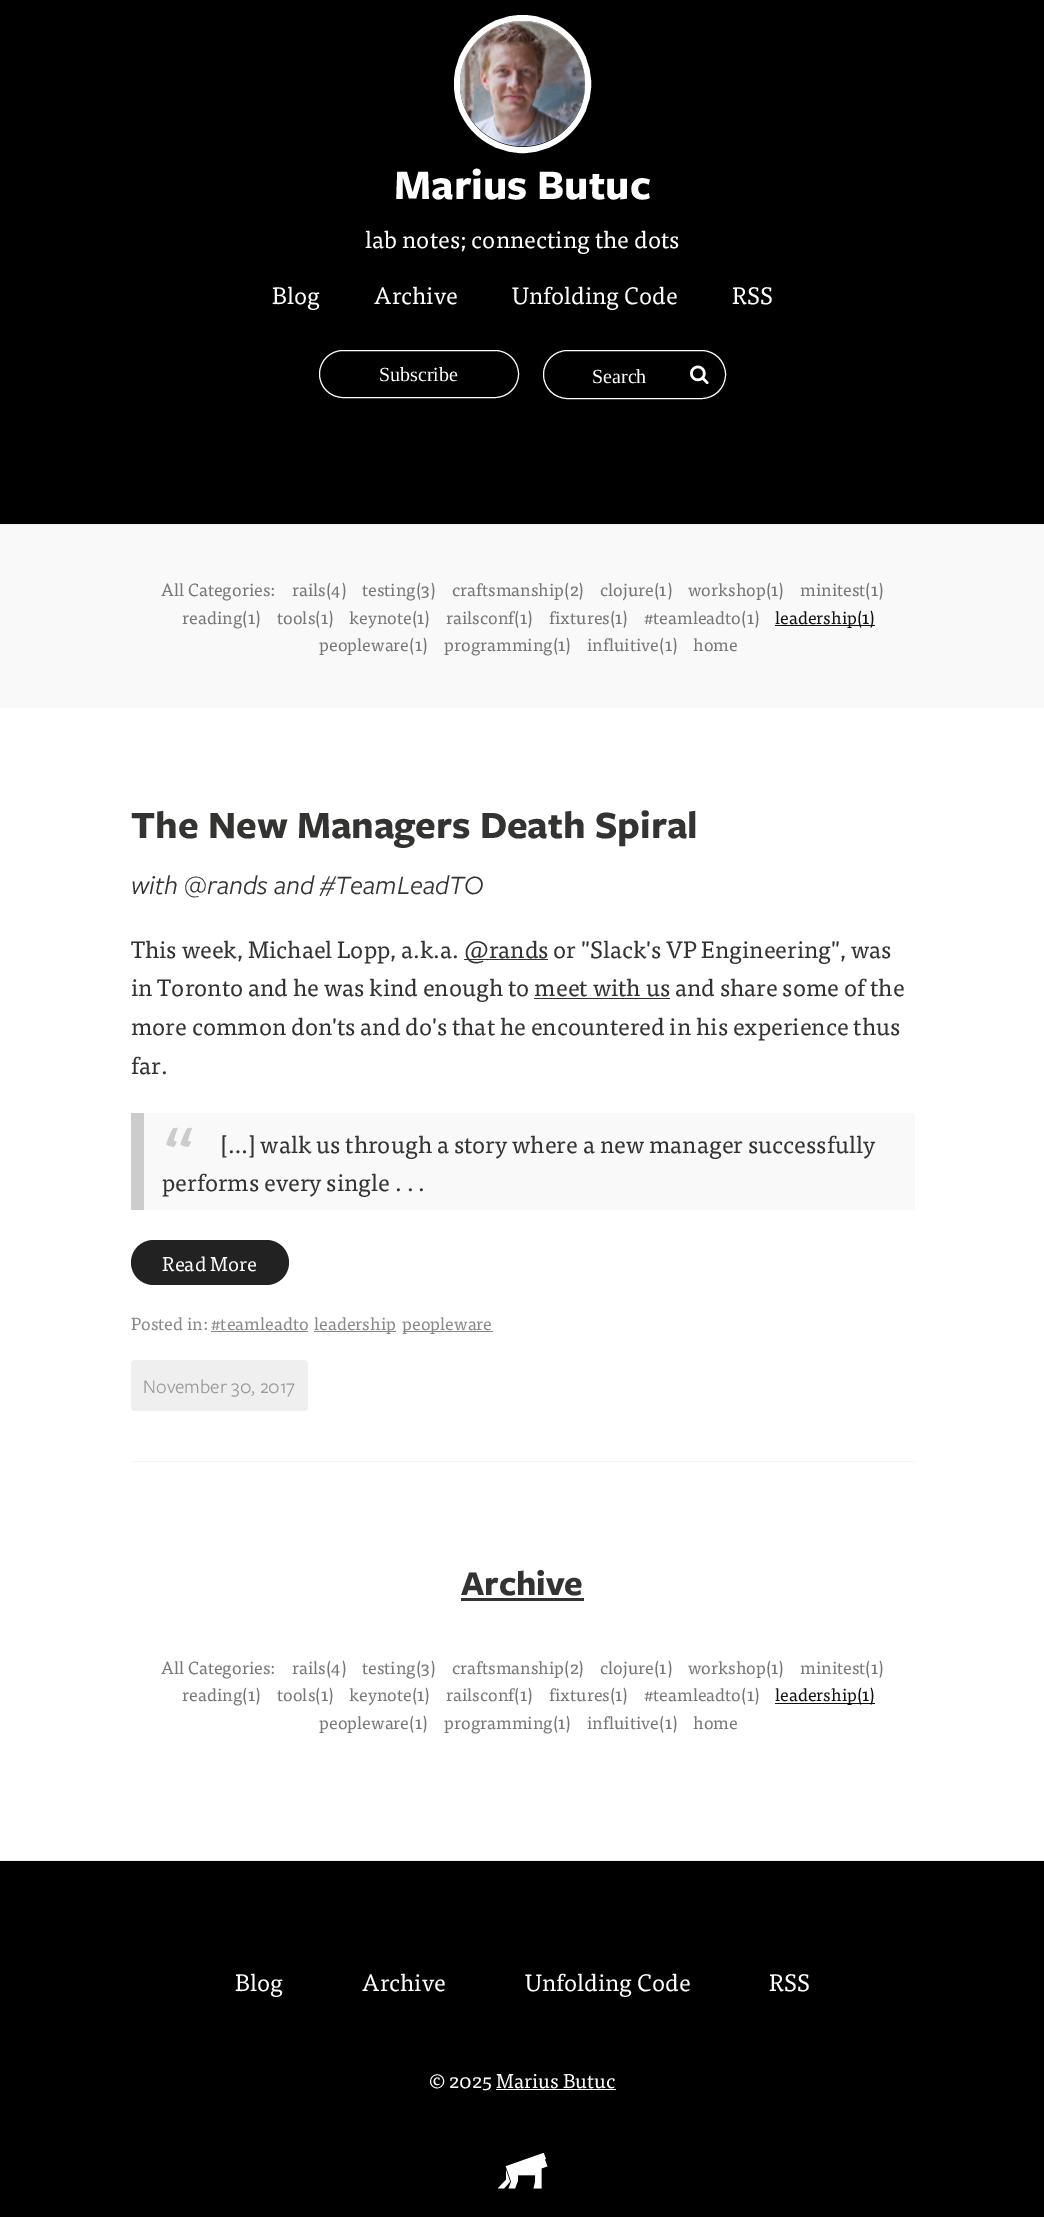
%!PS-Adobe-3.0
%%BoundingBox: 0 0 1044 2217
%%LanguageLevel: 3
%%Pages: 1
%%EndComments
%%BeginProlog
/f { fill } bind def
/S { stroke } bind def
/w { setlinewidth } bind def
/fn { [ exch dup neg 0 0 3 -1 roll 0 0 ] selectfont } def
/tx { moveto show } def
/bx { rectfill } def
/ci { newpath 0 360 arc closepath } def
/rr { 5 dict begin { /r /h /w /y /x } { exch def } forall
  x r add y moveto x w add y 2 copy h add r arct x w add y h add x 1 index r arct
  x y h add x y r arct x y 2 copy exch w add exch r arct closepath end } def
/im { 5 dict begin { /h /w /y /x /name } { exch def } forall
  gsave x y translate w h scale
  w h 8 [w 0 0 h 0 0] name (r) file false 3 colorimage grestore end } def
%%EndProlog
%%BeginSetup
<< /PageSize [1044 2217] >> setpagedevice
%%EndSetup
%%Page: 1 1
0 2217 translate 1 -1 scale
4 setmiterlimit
0 setgray
0 0 1044 2217 bx
1 setgray
6 w
457 18 131 132 65.5 rr S
522.5 83.5 62.5 ci f
(image0.raw) 460 21 125 126 im
/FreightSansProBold-Bold 43.75 fn
(Marius Butuc) 394 199 tx
/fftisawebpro-Regular 23.75 fn
(lab notes; connecting the dots) 365 248 tx
(Blog) 272 304 tx
(Archive) 374 304 tx
(Unfolding Code) 512 304 tx
(RSS) 732 304 tx
1 w
319.5 350.5 199 47 23.5 rr S
/LiberationSerif-Regular 20 fn
(Subscribe) 379 381 tx
543.5 350.5 182 48 24 rr S
(Search) 592 383 tx
(image1.raw) 690 365 19 20 im
0 708 1044 1152 bx
0.937 setgray
0 524 1044 1 bx
0 1860 1044 1 bx
0.976 setgray
0 525 1044 183 bx
/fftisawebpro-Regular 17.5 fn
0.467 setgray
(All Categories:) 161 596 tx
(rails\(4\)) 292 596 tx
(testing\(3\)) 362 596 tx
(craftsmanship\(2\)) 452 596 tx
(clojure\(1\)) 600 596 tx
(workshop\(1\)) 688 596 tx
(minitest\(1\)) 800 596 tx
(reading\(1\)) 182 624 tx
(tools\(1\)) 277 624 tx
(keynote\(1\)) 349 624 tx
(railsconf\(1\)) 446 624 tx
(fixtures\(1\)) 549 624 tx
(#teamleadto\(1\)) 644 624 tx
0.067 setgray
775 625 100 1 bx
(leadership\(1\)) 775 624 tx
0.467 setgray
(peopleware\(1\)) 319 651 tx
(programming\(1\)) 444 651 tx
(influitive\(1\)) 587 651 tx
(home) 693 651 tx
/FreightSansProBold-Bold 40 fn
0.2 0.2 0.196 setrgbcolor
(The New Managers Death Spiral) 131 838 tx
/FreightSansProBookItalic-Italic 27.5 fn
(with @rands and #TeamLeadTO) 131 894 tx
/fftisawebpro-Regular 23.75 fn
(This week, Michael Lopp, a.k.a.) 131 958 tx
0.2 setgray
464 959 84 1 bx
0.2 0.2 0.196 setrgbcolor
(@rands or "Slack's VP Engineering", was) 464 958 tx
(in Toronto and he was kind enough to meet with us and share some of the) 131 996 tx
0.2 setgray
534 998 136 1 bx
0.2 0.2 0.196 setrgbcolor
(more common don'ts and do's that he encountered in his experience thus) 131 1035 tx
(far.) 131 1074 tx
0.976 setgray
144 1113 771 97 bx
0.8 setgray
131 1113 13 97 bx
/fftisawebpro-Regular 80 fn
(“) 162 1184 tx
/fftisawebpro-Regular 23.75 fn
0.2 0.2 0.196 setrgbcolor
([…] walk us through a story where a new manager successfully) 220 1153 tx
(performs every single . . .) 162 1191 tx
0.133 setgray
131 1240 158 45 22.5 rr f
/fftisawebpro-Regular 20 fn
1 setgray
(Read More) 162 1271 tx
/fftisawebpro-Regular 17.5 fn
0.533 setgray
(Posted in: #teamleadto) 131 1330 tx
314 1331 82 1 bx
(leadership) 314 1330 tx
403 1331 90 1 bx
(peopleware) 402 1330 tx
211 1331 97 1 bx
0.937 setgray
131 1360 177 51 4 rr f
/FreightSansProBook-Regular 20 fn
0.6 setgray
(November 30, 2017) 143 1393 tx
0.961 setgray
131 1461 784 1 bx
/FreightSansProBold-Bold 36 fn
0.2 0.2 0.196 setrgbcolor
(Archive) 461 1595 tx
0.2 setgray
461 1598 123 3 bx
/fftisawebpro-Regular 17.5 fn
0.467 setgray
(All Categories:) 161 1674 tx
(rails\(4\)) 292 1674 tx
(testing\(3\)) 362 1674 tx
(craftsmanship\(2\)) 452 1674 tx
(clojure\(1\)) 600 1674 tx
(workshop\(1\)) 688 1674 tx
(minitest\(1\)) 800 1674 tx
(reading\(1\)) 182 1701 tx
(tools\(1\)) 277 1701 tx
(keynote\(1\)) 349 1701 tx
(railsconf\(1\)) 446 1701 tx
(fixtures\(1\)) 549 1701 tx
(#teamleadto\(1\)) 644 1701 tx
0.067 setgray
775 1703 100 1 bx
(leadership\(1\)) 775 1701 tx
0.467 setgray
(peopleware\(1\)) 319 1729 tx
(programming\(1\)) 444 1729 tx
(influitive\(1\)) 587 1729 tx
(home) 693 1729 tx
/fftisawebpro-Regular 23.75 fn
1 setgray
(Blog) 235 1991 tx
(Archive) 362 1991 tx
(Unfolding Code) 525 1991 tx
(RSS) 769 1991 tx
/fftisawebpro-Regular 20 fn
(© 2025 Marius Butuc) 429 2088 tx
496 2089 120 1 bx
(image2.raw) 498 2153 50 36 im
showpage
%%EOF
